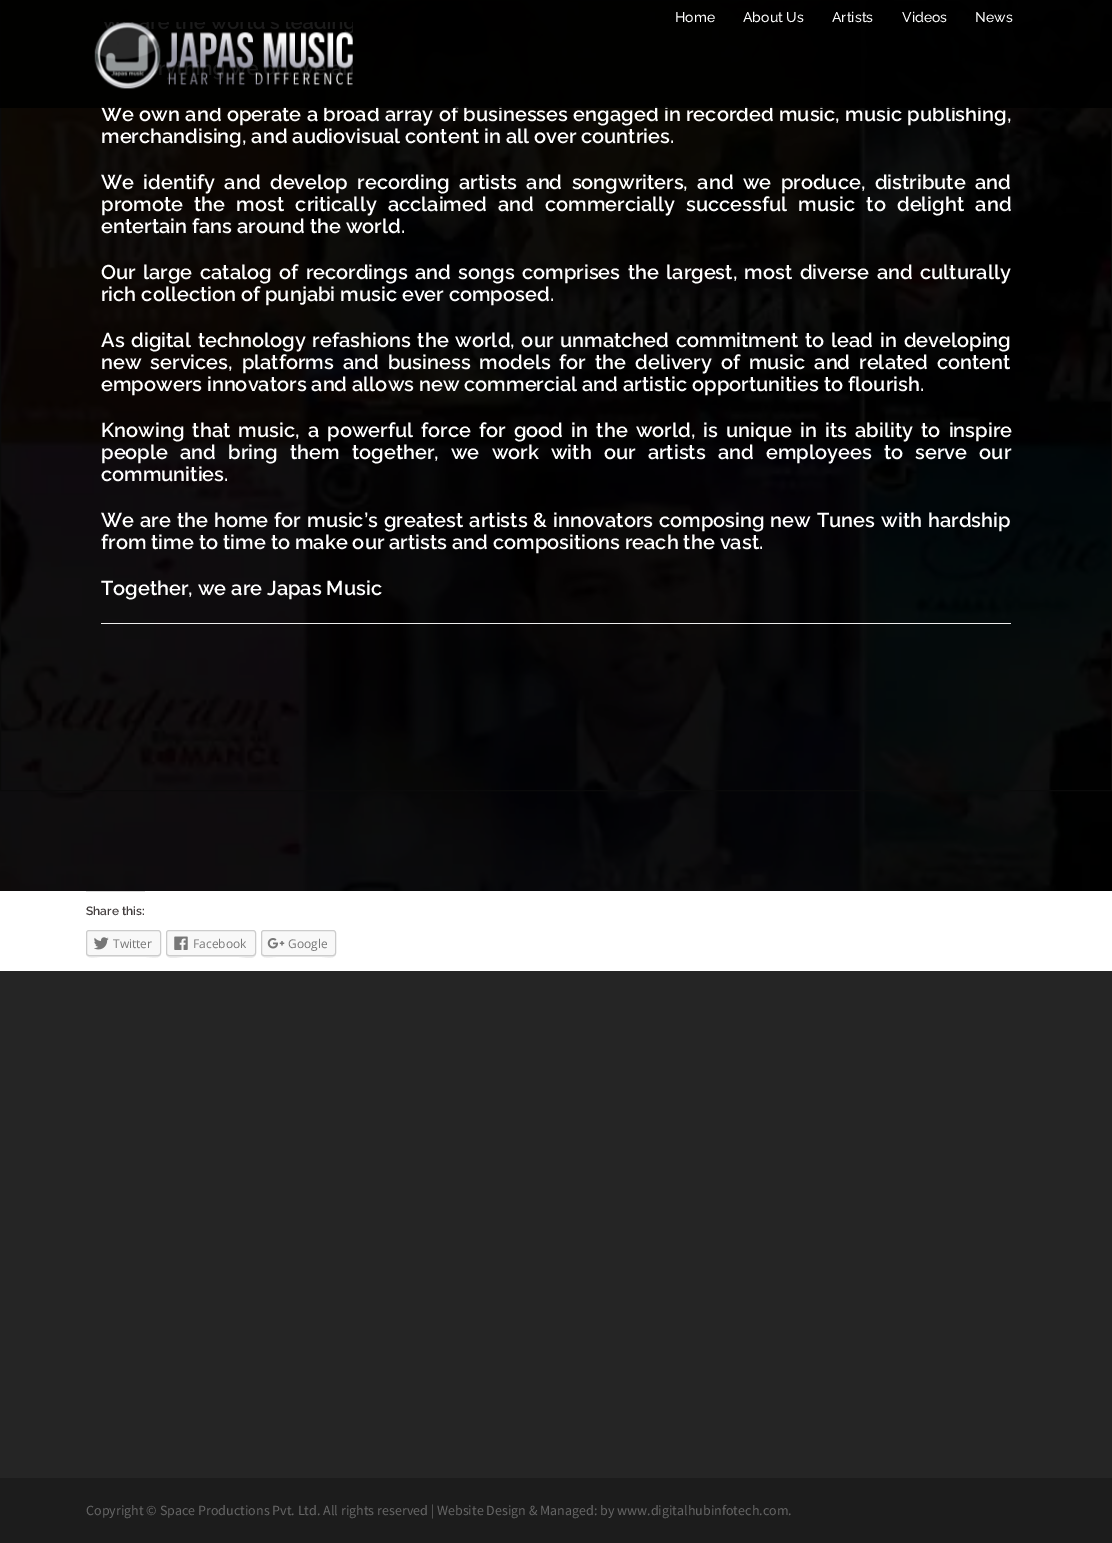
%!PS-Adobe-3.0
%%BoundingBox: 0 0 1112 1543
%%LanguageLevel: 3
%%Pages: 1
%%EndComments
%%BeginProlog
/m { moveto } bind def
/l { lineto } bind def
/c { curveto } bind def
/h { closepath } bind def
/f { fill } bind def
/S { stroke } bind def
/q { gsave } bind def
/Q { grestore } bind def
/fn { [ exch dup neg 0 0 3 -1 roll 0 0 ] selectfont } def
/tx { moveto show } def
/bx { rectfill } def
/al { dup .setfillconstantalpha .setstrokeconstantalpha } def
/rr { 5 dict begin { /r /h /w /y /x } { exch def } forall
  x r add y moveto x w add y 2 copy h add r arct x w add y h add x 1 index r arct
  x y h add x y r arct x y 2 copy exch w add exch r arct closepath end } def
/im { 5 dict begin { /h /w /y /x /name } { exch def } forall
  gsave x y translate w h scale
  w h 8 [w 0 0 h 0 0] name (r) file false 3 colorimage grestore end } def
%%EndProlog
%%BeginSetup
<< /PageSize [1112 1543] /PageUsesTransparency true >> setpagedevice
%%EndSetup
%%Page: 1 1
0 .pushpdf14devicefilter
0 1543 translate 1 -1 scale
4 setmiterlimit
1 setgray
0 0 1112 1543 bx
(image1.raw) 0 0 1112 891 im
0.039 setgray
0.5 -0.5 1111 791 rectstroke
/Raleway-SemiBold 20 fn
1 setgray
101 121 m 0.5 0 32 (We own and operate a broad array of businesses engaged in recorded music, music publishing,) widthshow
0.9 al
0 setgray
0 0 1112 108 bx
/Raleway-Medium 14 fn
1 al
1 setgray
(Home) 675 22 tx
(About Us) 743 22 tx
(Artists) 832 22 tx
(Videos) 902 22 tx
(News) 975 22 tx
(image0.raw) 94 22 259 67 im
/Raleway-SemiBold 20 fn
(merchandising, and audiovisual content in all over countries.) 101 143 tx
101 189 m 4.5 0 32 (We identify and develop recording artists and songwriters, and we produce, distribute and) widthshow
101 211 m 6.25 0 32 (promote the most critically acclaimed and commercially successful music to delight and) widthshow
(entertain fans around the world.) 101 233 tx
101 279 m 2.5 0 32 (Our large catalog of recordings and songs comprises the largest, most diverse and culturally) widthshow
(rich collection of punjabi music ever composed.) 101 301 tx
101 347 m 1.9 0 32 (As digital technology refashions the world, our unmatched commitment to lead in developing) widthshow
101 369 m 4 0 32 (new services, platforms and business models for the delivery of music and related content) widthshow
(empowers innovators and allows new commercial and artistic opportunities to flourish.) 101 391 tx
101 437 m 3.25 0 32 (Knowing that music, a powerful force for good in the world, is unique in its ability to inspire) widthshow
101 459 m 7.25 0 32 (people and bring them together, we work with our artists and employees to serve our) widthshow
(communities.) 101 481 tx
101 527 m 1.1 0 32 (We are the home for music’s greatest artists & innovators composing new Tunes with hardship) widthshow
(from time to time to make our artists and compositions reach the vast.) 101 549 tx
(Together, we are Japas Music) 101 595 tx
0.933 setgray
101 623 910 1 bx
0.867 setgray
86 891 59 1 bx
/Raleway-SemiBold 12 fn
0.267 0.247 0.247 setrgbcolor
(Share this:) 86 915 tx
0.922 setgray
86 953 m 86 960 96 957 100 957 c 146 957 l 151 957 161 960 161 953 c 161 955 160 956 158 956 c 89 956 l 87 956 86 955 86 953 c h f
0.973 setgray
86.5 930.5 74 25 2.5 rr q f Q
0.8 setgray
S
(image2.raw) 94 937 15 13 im
/OpenSans-Regular 12 fn
0.467 setgray
(Twitter) 113 948 tx
0.922 setgray
166 953 m 166 961 179 957 183 957 c 239 957 l 243 957 256 961 256 953 c 256 955 255 956 253 956 c 169 956 l 167 956 166 955 166 953 c h f
0.973 setgray
166.5 930.5 89 25 2.5 rr q f Q
0.8 setgray
S
(image3.raw) 174 936 14 14 im
0.467 setgray
(Facebook) 193 948 tx
0.922 setgray
261 953 m 261 960 271 957 276 957 c 322 957 l 326 957 336 960 336 953 c 336 955 335 956 333 956 c 264 956 l 262 956 261 955 261 953 c h f
0.973 setgray
261.5 930.5 74 25 2.5 rr q f Q
0.8 setgray
S
(image4.raw) 267 938 18 11 im
0.467 setgray
(Google) 288 948 tx
0.145 setgray
0 971 1112 507 bx
0.11 setgray
0 1478 1112 65 bx
/SourceSansPro-Regular 14 fn
0.4 setgray
(Copyright © Space Productions Pvt. Ltd. All rights reserved | Website Design & Managed: by www.digitalhubinfotech.com.) 86 1515 tx
.poppdf14devicefilter showpage
%%EOF
